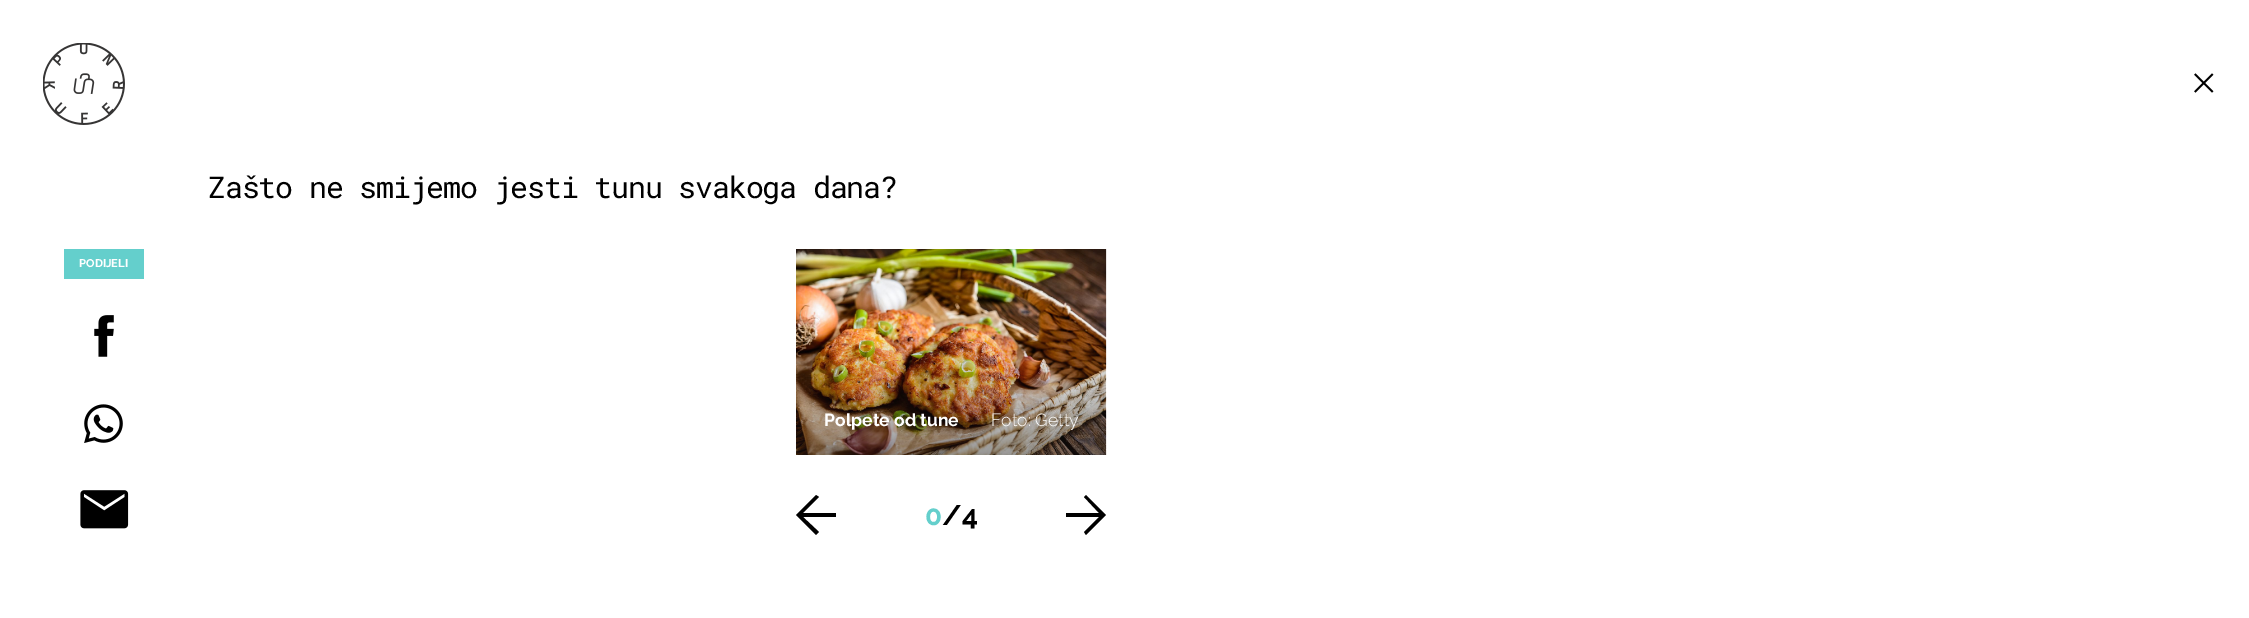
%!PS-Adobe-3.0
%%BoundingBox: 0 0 2249 618
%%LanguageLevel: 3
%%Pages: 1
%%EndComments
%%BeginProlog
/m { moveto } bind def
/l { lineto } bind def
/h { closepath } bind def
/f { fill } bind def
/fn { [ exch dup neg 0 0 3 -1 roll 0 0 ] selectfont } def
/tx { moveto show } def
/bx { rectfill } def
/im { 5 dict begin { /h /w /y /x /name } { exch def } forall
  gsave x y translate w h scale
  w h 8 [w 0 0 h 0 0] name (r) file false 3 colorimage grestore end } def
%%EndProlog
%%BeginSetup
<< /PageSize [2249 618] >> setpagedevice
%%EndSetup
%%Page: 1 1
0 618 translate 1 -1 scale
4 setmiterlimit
1 setgray
0 0 2249 618 bx
(image0.raw) 43 43 82 82 im
(image1.raw) 2194 73 20 20 im
/RobotoMono-Regular 30 fn
0 setgray
208 198 m -1.2 0 (Zašto ne smijemo jesti tunu svakoga dana?) ashow
0.392 0.812 0.8 setrgbcolor
64 249 80 30 bx
/Raleway-Bold 11.25 fn
1 setgray
(PODIJELI) 79 267 tx
(image2.raw) 94 315 20 42 im
(image3.raw) 84 404 39 39 im
(image4.raw) 80 490 49 39 im
(image5.raw) 796 249 311 206 im
/Raleway-Bold 17.5 fn
(Polpete od tune) 824 426 tx
/Raleway-Light 17.5 fn
(Foto: Getty) 991 426 tx
0 setgray
816 535 m 819 532 l 803 517 l 836 517 l 836 513 l 803 513 l 819 497 l 816 495 l 796 515 l h f
/Raleway-Bold 28 fn
0.392 0.812 0.8 setrgbcolor
(0) 925 525 tx
0 setgray
(/4) 942 525 tx
1086 535 m 1084 532 l 1099 517 l 1066 517 l 1066 513 l 1099 513 l 1084 497 l 1086 495 l 1106 515 l h f
showpage
%%EOF
